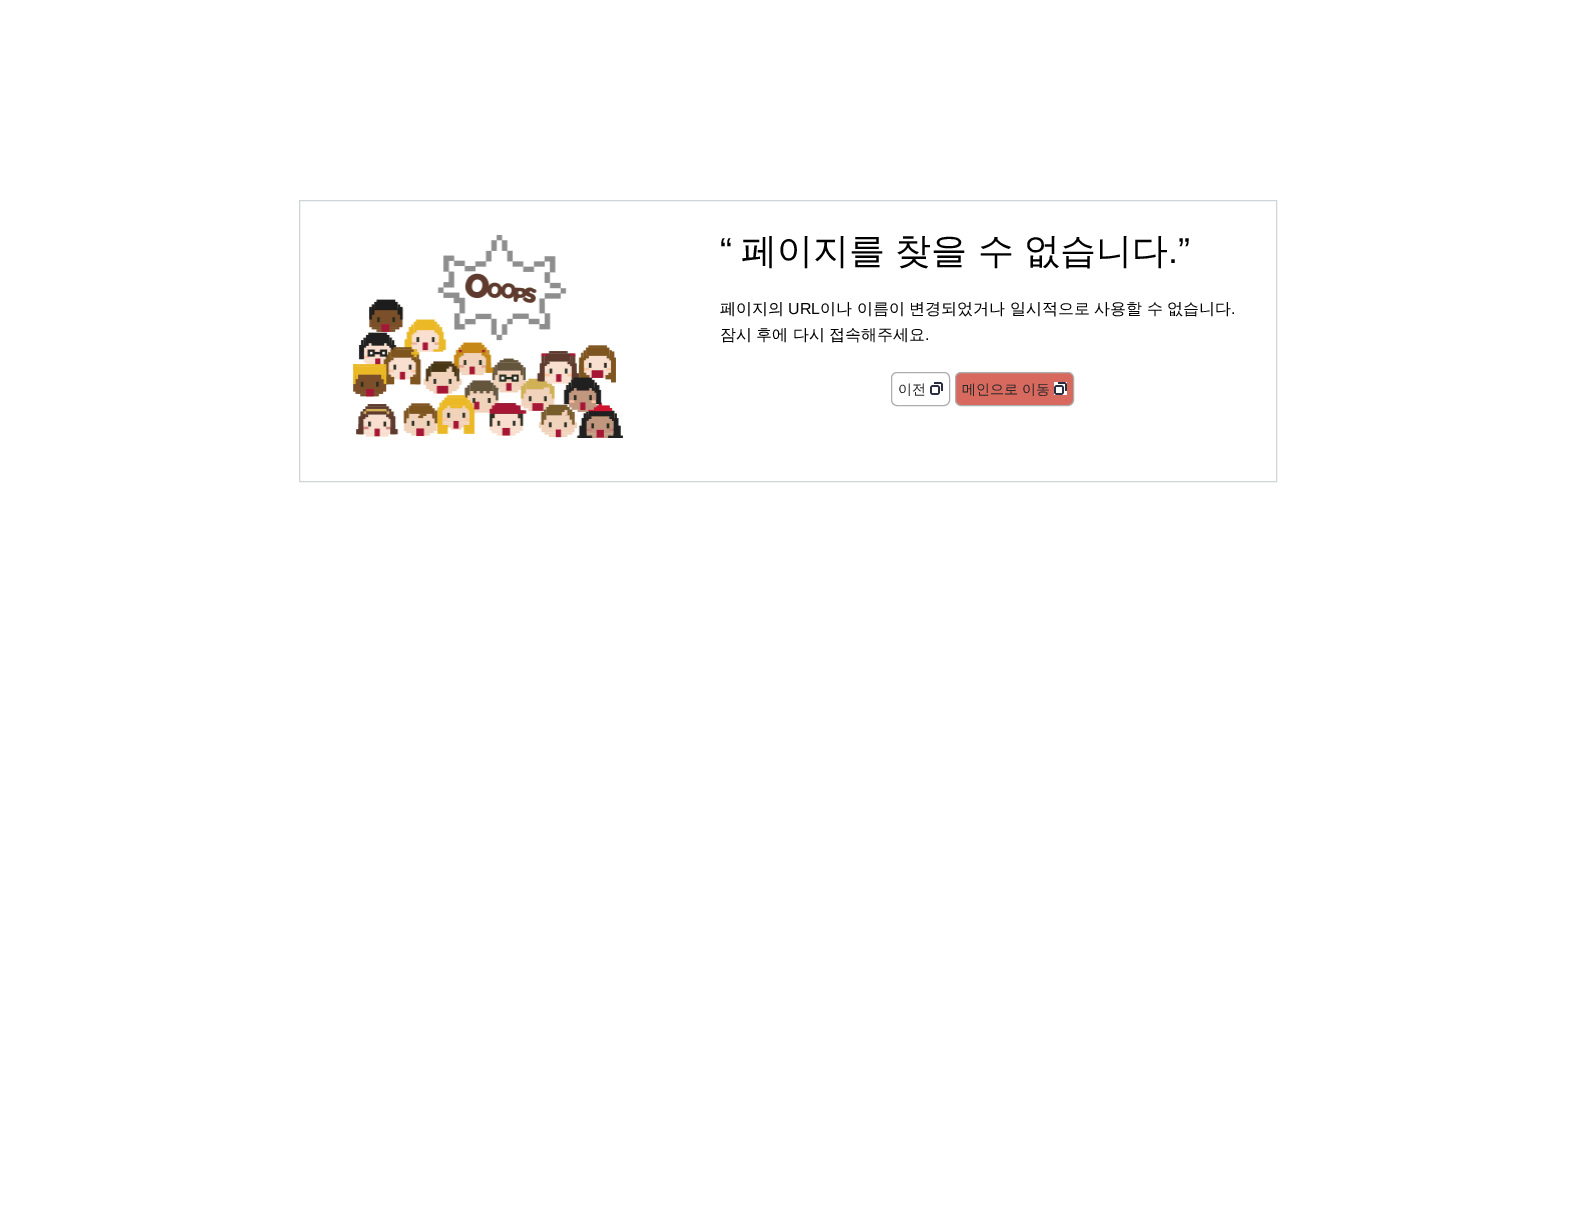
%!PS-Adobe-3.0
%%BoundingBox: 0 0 1575 1217
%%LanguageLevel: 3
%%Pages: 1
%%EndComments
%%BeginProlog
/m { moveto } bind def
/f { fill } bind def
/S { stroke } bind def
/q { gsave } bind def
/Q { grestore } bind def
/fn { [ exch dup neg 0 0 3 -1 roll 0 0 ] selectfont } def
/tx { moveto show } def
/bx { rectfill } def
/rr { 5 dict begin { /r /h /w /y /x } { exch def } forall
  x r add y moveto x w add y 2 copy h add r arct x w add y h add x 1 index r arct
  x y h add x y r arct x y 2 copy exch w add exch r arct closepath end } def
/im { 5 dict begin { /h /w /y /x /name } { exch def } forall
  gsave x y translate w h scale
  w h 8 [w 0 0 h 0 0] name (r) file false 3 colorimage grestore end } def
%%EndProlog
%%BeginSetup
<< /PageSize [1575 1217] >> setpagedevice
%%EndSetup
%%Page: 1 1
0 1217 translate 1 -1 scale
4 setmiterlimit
1 setgray
0 0 1575 1217 bx
0.812 0.831 0.847 setrgbcolor
299.5 200.5 977 281 rectstroke
(image0.raw) 353 235 270 203 im
/LiberationSans-Regular 36 fn
0 setgray
(“) 720 263 tx
/WenQuanYiZenHei-Medium 36 fn
741 263 m -0.5 0 32 (페이지를 찾을 수 없습니다) widthshow
/LiberationSans-Regular 36 fn
(.”) 1168 263 tx
/WenQuanYiZenHei-Medium 16 fn
(페이지의) 720 314 tx
/LiberationSans-Regular 16 fn
(URL) 788 314 tx
/WenQuanYiZenHei-Medium 16 fn
820 314 m -0.25 0 32 (이나 이름이 변경되었거나 일시적으로 사용할 수 없습니다) widthshow
/LiberationSans-Regular 16 fn
(.) 1231 314 tx
/WenQuanYiZenHei-Medium 16 fn
720 340 m -0.5 0 32 (잠시 후에 다시 접속해주세요) widthshow
/LiberationSans-Regular 16 fn
(.) 925 340 tx
0.682 setgray
891.5 372.5 58 33 5.5 rr S
/WenQuanYiZenHei-Medium 14 fn
0.161 setgray
(이전) 898 394 tx
(image1.raw) 930 382 13 13 im
0.843 0.412 0.369 setrgbcolor
955.5 372.5 118 33 5.5 rr q f Q
0.682 setgray
S
0.161 setgray
(메인으로 이동) 962 394 tx
(image1.raw) 1054 382 13 13 im
showpage
%%EOF
